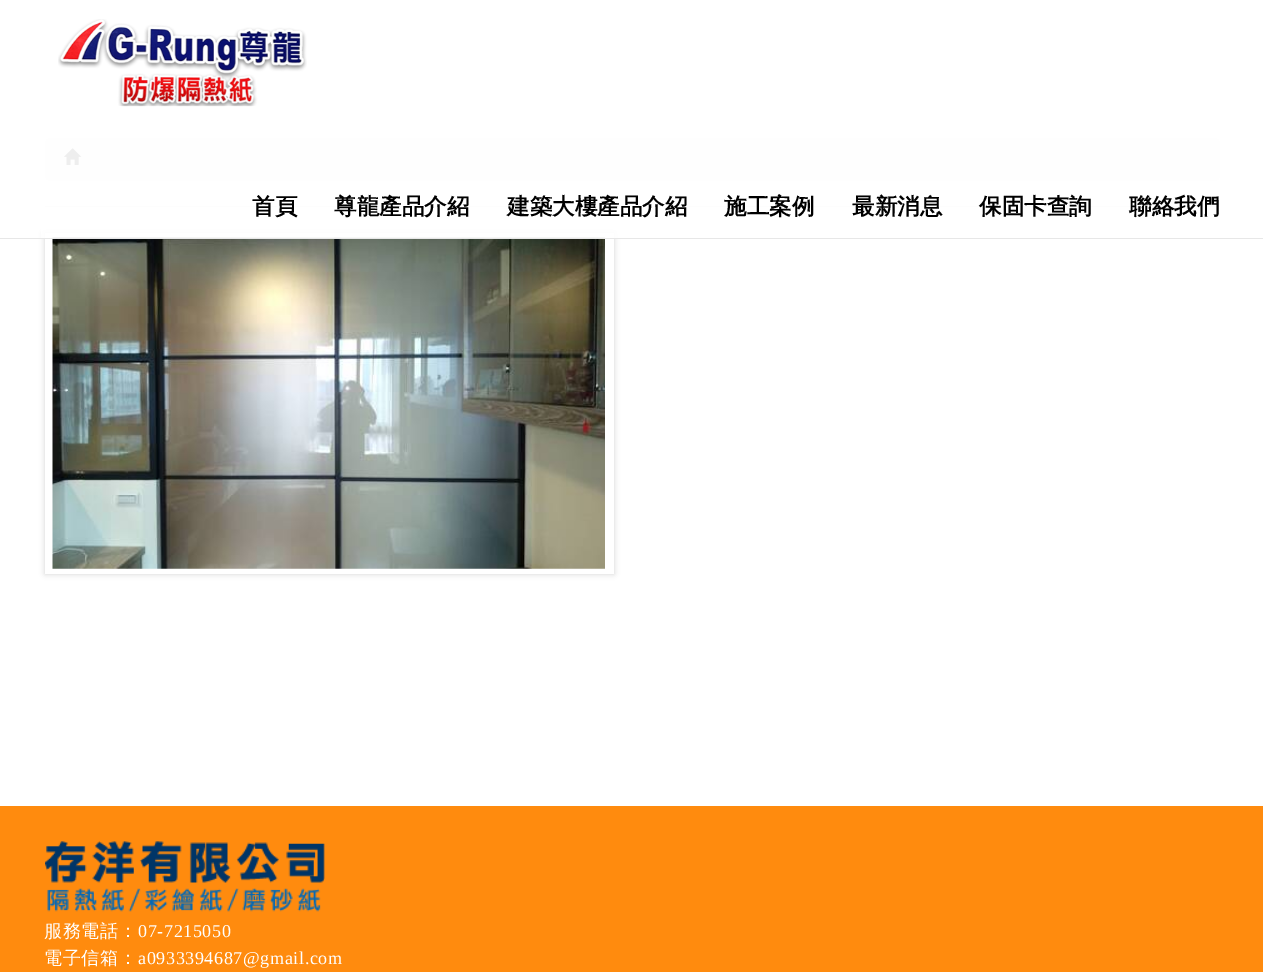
%!PS-Adobe-3.0
%%BoundingBox: 0 0 1263 972
%%LanguageLevel: 3
%%Pages: 1
%%EndComments
%%BeginProlog
/m { moveto } bind def
/f { fill } bind def
/fn { [ exch dup neg 0 0 3 -1 roll 0 0 ] selectfont } def
/tx { moveto show } def
/bx { rectfill } def
/al { dup .setfillconstantalpha .setstrokeconstantalpha } def
/rr { 5 dict begin { /r /h /w /y /x } { exch def } forall
  x r add y moveto x w add y 2 copy h add r arct x w add y h add x 1 index r arct
  x y h add x y r arct x y 2 copy exch w add exch r arct closepath end } def
/sh { 12 dict begin { /a /b /q /h /w /y /x } { exch def } forall gsave /was 0 def
  9 -2 -9 { dup b mul 4 div /e exch def 1 sub .425 mul 2.718 exch exp 1 add a .99 .min exch div /now exch def
    1 1 now sub 1 was sub div sub al /was now def
    w h .min e 2 mul add 0 gt { x e sub y e sub w e 2 mul add h e 2 mul add
      q e add b .6 mul add w h .min 2 div e add .min 0 .max rr fill } if } for grestore end } def
/im { 5 dict begin { /h /w /y /x /name } { exch def } forall
  gsave x y translate w h scale
  w h 8 [w 0 0 h 0 0] name (r) file false 3 colorimage grestore end } def
%%EndProlog
%%BeginSetup
<< /PageSize [1263 972] /PageUsesTransparency true >> setpagedevice
%%EndSetup
%%Page: 1 1
0 .pushpdf14devicefilter
0 972 translate 1 -1 scale
4 setmiterlimit
1 setgray
0 0 1263 972 bx
0.961 setgray
45 138 1175 43 5 rr f
(image0.raw) 64 148 18 17 im
0.933 setgray
45 206 1175 1 bx
0.824 setgray
45 233 569 341 0 3 1 sh
1 setgray
45 233 569 341 bx
(image1.raw) 52 237 553 332 im
0.9 al
41 138 1179 100 bx
1 al
0.906 setgray
0 238 1263 1 bx
(image2.raw) 58 19 249 88 im
/WenQuanYiZenHei-Bold 22.5 fn
0 setgray
(首頁) 252 214 tx
(尊龍產品介紹) 334 214 tx
(建築大樓產品介紹) 507 214 tx
(施工案例) 724 214 tx
(最新消息) 852 214 tx
(保固卡查詢) 979 214 tx
(聯絡我們) 1129 214 tx
1 0.545 0.055 setrgbcolor
0 806 1263 166 bx
(image3.raw) 45 841 280 71 im
/WenQuanYiZenHei-Medium 18.1 fn
1 setgray
44 937 m 0.6 0 (服務電話：) ashow
/LiberationSerif-Regular 18.1 fn
138 937 m 0.6 0 (07-7215050) ashow
/WenQuanYiZenHei-Medium 18.1 fn
44 964 m 0.6 0 (電子信箱：) ashow
/LiberationSerif-Regular 18.1 fn
138 964 m 0.6 0 (a0933394687@gmail.com) ashow
.poppdf14devicefilter showpage
%%EOF
